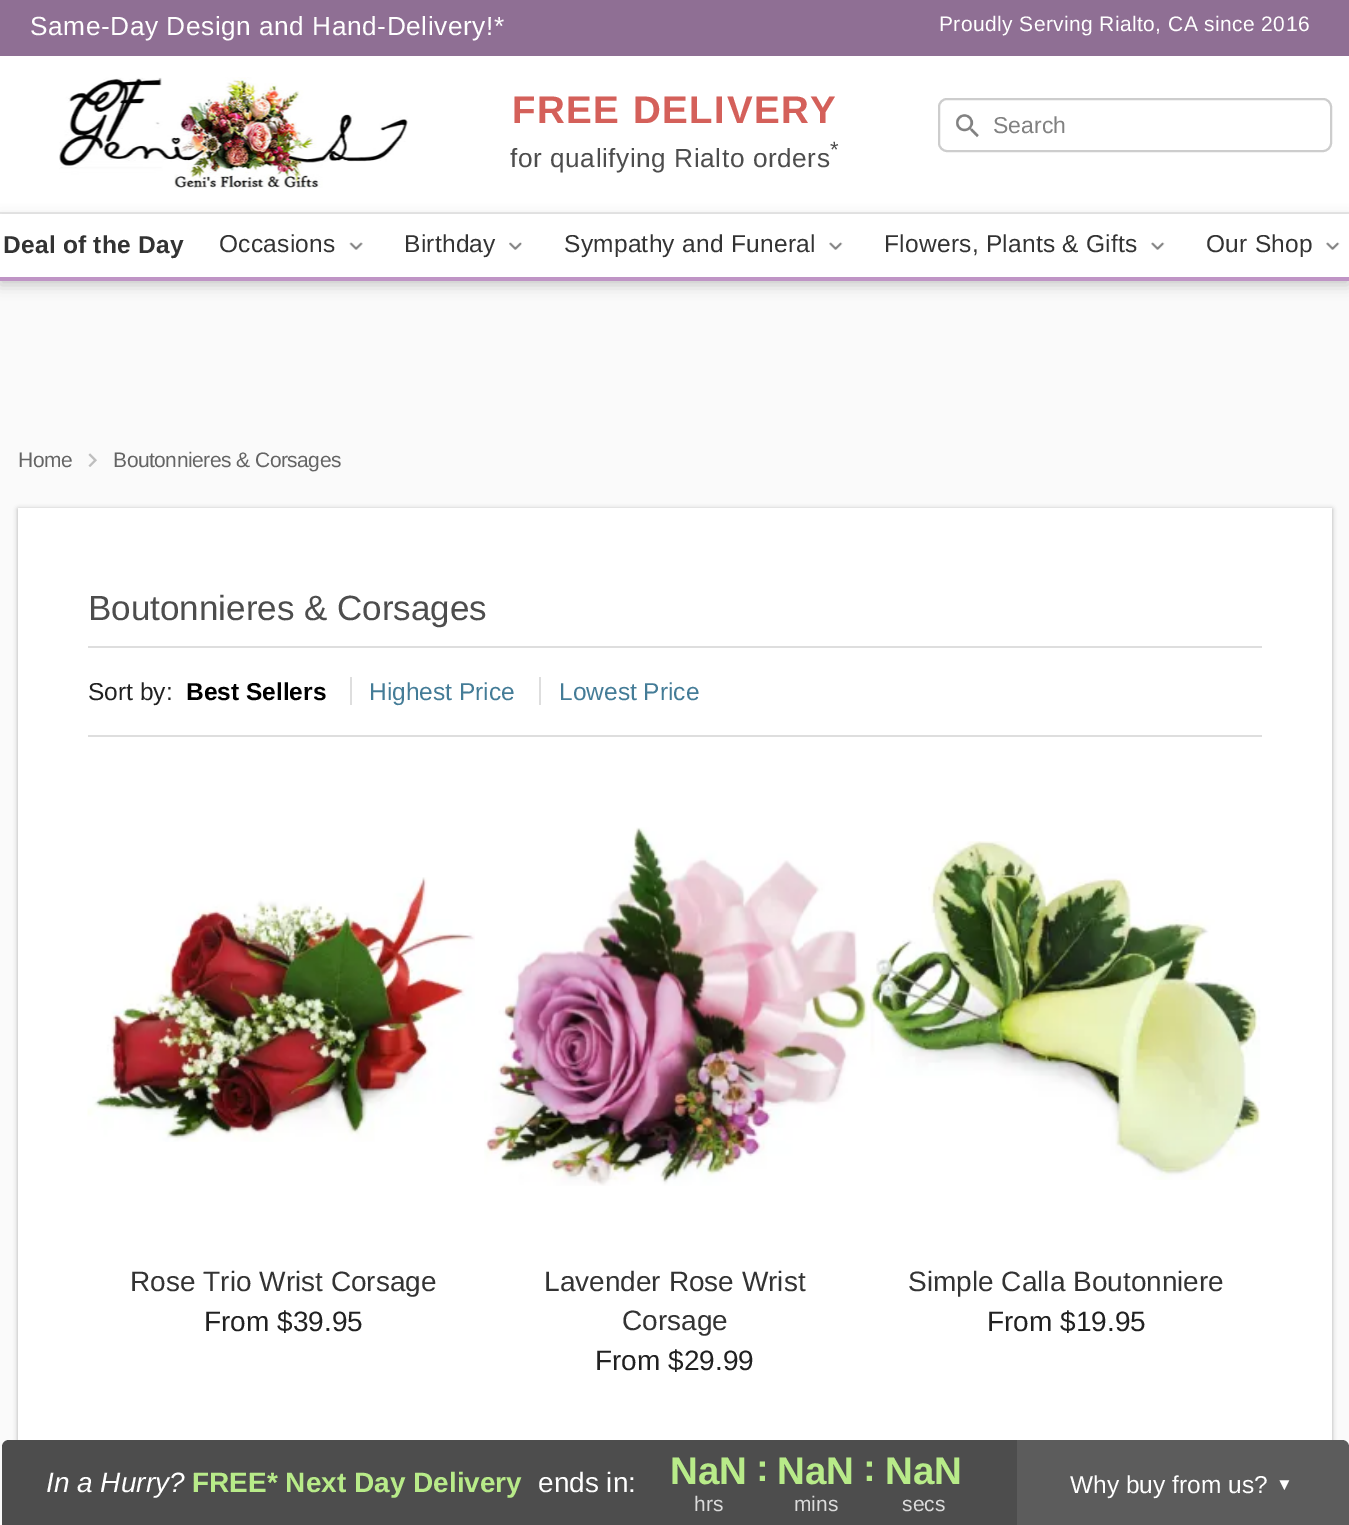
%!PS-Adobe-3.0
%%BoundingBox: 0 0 1349 1525
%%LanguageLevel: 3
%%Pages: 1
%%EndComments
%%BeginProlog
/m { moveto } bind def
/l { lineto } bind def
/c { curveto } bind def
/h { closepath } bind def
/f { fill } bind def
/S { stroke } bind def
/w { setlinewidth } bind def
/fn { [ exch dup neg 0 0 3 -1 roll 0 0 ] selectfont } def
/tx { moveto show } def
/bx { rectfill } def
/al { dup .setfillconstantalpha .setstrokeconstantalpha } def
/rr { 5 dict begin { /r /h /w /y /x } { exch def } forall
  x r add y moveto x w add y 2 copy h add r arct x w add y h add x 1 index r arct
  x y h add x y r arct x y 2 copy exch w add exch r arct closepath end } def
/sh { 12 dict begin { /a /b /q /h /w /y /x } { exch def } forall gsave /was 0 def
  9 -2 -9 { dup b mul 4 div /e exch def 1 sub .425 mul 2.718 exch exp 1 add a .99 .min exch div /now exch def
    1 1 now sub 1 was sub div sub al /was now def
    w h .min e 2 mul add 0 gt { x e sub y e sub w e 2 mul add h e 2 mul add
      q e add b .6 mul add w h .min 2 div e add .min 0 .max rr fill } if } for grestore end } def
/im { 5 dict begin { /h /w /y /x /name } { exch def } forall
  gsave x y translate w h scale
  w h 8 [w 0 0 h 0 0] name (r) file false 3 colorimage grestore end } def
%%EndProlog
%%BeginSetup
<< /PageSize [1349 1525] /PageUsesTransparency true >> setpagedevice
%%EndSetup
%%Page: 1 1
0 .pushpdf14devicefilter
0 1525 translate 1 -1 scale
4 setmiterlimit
0.98 setgray
0 0 1349 1525 bx
0.561 0.435 0.58 setrgbcolor
0 0 1349 56 bx
/LiberationSans-Regular 26.25 fn
1 setgray
30 35 m 0.55 0 (Same-Day Design and Hand-Delivery!*) ashow
/LiberationSans-Regular 21 fn
939 31 m 0.4 0 (Proudly Serving Rialto, CA since 2016) ashow
0 56 1349 156 bx
0.918 setgray
0 212 1349 2 bx
(image0.raw) 59 77 349 111 im
/LiberationSans-Bold 38.5 fn
0.831 0.376 0.353 setrgbcolor
512 123 m 1.5 0 (FREE DELIVERY) ashow
/LiberationSans-Regular 22 fn
0.302 setgray
830 157 m 0.55 0 (*) ashow
/LiberationSans-Regular 26.25 fn
510 167 m 0.55 0 (for qualifying Rialto orders) ashow
(image1.raw) 956 114 23 24 im
0.804 setgray
2 w
939 99 392 52 8 rr S
/LiberationSans-Regular 23 fn
0.506 setgray
(Search) 993 133 tx
0 setgray
0 219 1349 66 0 7 0.2 sh
1 setgray
0 214 1349 63 bx
0.749 0.58 0.773 setrgbcolor
0 277 1349 4 bx
/LiberationSans-Bold 24.5 fn
0.2 setgray
3 253 m 0.25 0 (Deal of the Day) ashow
/LiberationSans-Regular 24.5 fn
219 252 m 0.25 0 (Occasions) ashow
(image2.raw) 349 242 14 8 im
404 252 m 0.25 0 (Birthday) ashow
(image3.raw) 509 242 13 8 im
564 252 m 0.25 0 (Sympathy and Funeral) ashow
(image4.raw) 829 242 14 8 im
884 252 m 0.25 0 (Flowers, Plants & Gifts) ashow
(image4.raw) 1151 242 14 8 im
1206 252 m 0.25 0 (Our Shop) ashow
(image4.raw) 1326 242 14 8 im
/LiberationSans-Regular 21 fn
0.392 setgray
18 467 m -0.5 0 (Home) ashow
(image5.raw) 88 453 9 14 im
113 467 m -0.5 0 (Boutonnieres & Corsages) ashow
0 setgray
18 509 1314 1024 0 2.5 0.3 sh
1 setgray
18 508 1314 932 bx
/LiberationSans-Regular 35 fn
0.302 setgray
(Boutonnieres & Corsages) 88 620 tx
0.871 setgray
88 646 1174 2 bx
88 735 1174 2 bx
/LiberationSans-Regular 24.5 fn
0.129 setgray
(Sort by:) 88 700 tx
/LiberationSans-Bold 24.5 fn
0 setgray
(Best Sellers) 186 700 tx
/LiberationSans-Regular 24.5 fn
0.267 0.486 0.592 setrgbcolor
(Highest Price) 369 700 tx
0.871 setgray
350 677 2 28 bx
0.267 0.486 0.592 setrgbcolor
(Lowest Price) 559 700 tx
0.871 setgray
539 677 2 28 bx
(image6.raw) 87 877 388 265 im
/LiberationSans-Regular 28 fn
0.2 setgray
(Rose Trio Wrist Corsage) 130 1291 tx
0.129 setgray
(From $39.95) 204 1331 tx
(image7.raw) 484 827 385 359 im
0.2 setgray
(Lavender Rose Wrist) 544 1291 tx
(Corsage) 622 1330 tx
0.129 setgray
(From $29.99) 595 1370 tx
(image8.raw) 869 841 392 339 im
0.2 setgray
(Simple Calla Boutonniere) 908 1291 tx
0.129 setgray
(From $19.95) 987 1331 tx
0.302 setgray
9 1440 m 1017 1440 l 1017 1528 l 2 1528 l 2 1447 l 2 1443 5 1440 9 1440 c h f
/LiberationSans-Italic 28 fn
1 setgray
(In a Hurry?) 46 1492 tx
/LiberationSans-Bold 28 fn
0.722 0.922 0.537 setrgbcolor
(FREE* Next Day Delivery) 192 1492 tx
/LiberationSans-Regular 28 fn
1 setgray
(ends in:) 538 1492 tx
/LiberationSans-Bold 38.5 fn
0.722 0.922 0.537 setrgbcolor
(NaN) 670 1484 tx
/LiberationSans-Regular 21 fn
0.859 setgray
(hrs) 694 1511 tx
/LiberationSans-Bold 38.5 fn
0.722 0.922 0.537 setrgbcolor
(:) 756 1481 tx
(NaN) 777 1484 tx
/LiberationSans-Regular 21 fn
0.859 setgray
(mins) 794 1511 tx
/LiberationSans-Bold 38.5 fn
0.722 0.922 0.537 setrgbcolor
(:) 863 1481 tx
(NaN) 885 1484 tx
/LiberationSans-Regular 21 fn
0.859 setgray
(secs) 902 1511 tx
0.361 setgray
1017 1440 m 1342 1440 l 1346 1440 1349 1443 1349 1447 c 1349 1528 l 1017 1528 l h f
/LiberationSans-Regular 24.5 fn
1 setgray
(Why buy from us?) 1070 1493 tx
/LiberationSans-Regular 17 fn
(▼) 1276 1490 tx
.poppdf14devicefilter showpage
%%EOF
